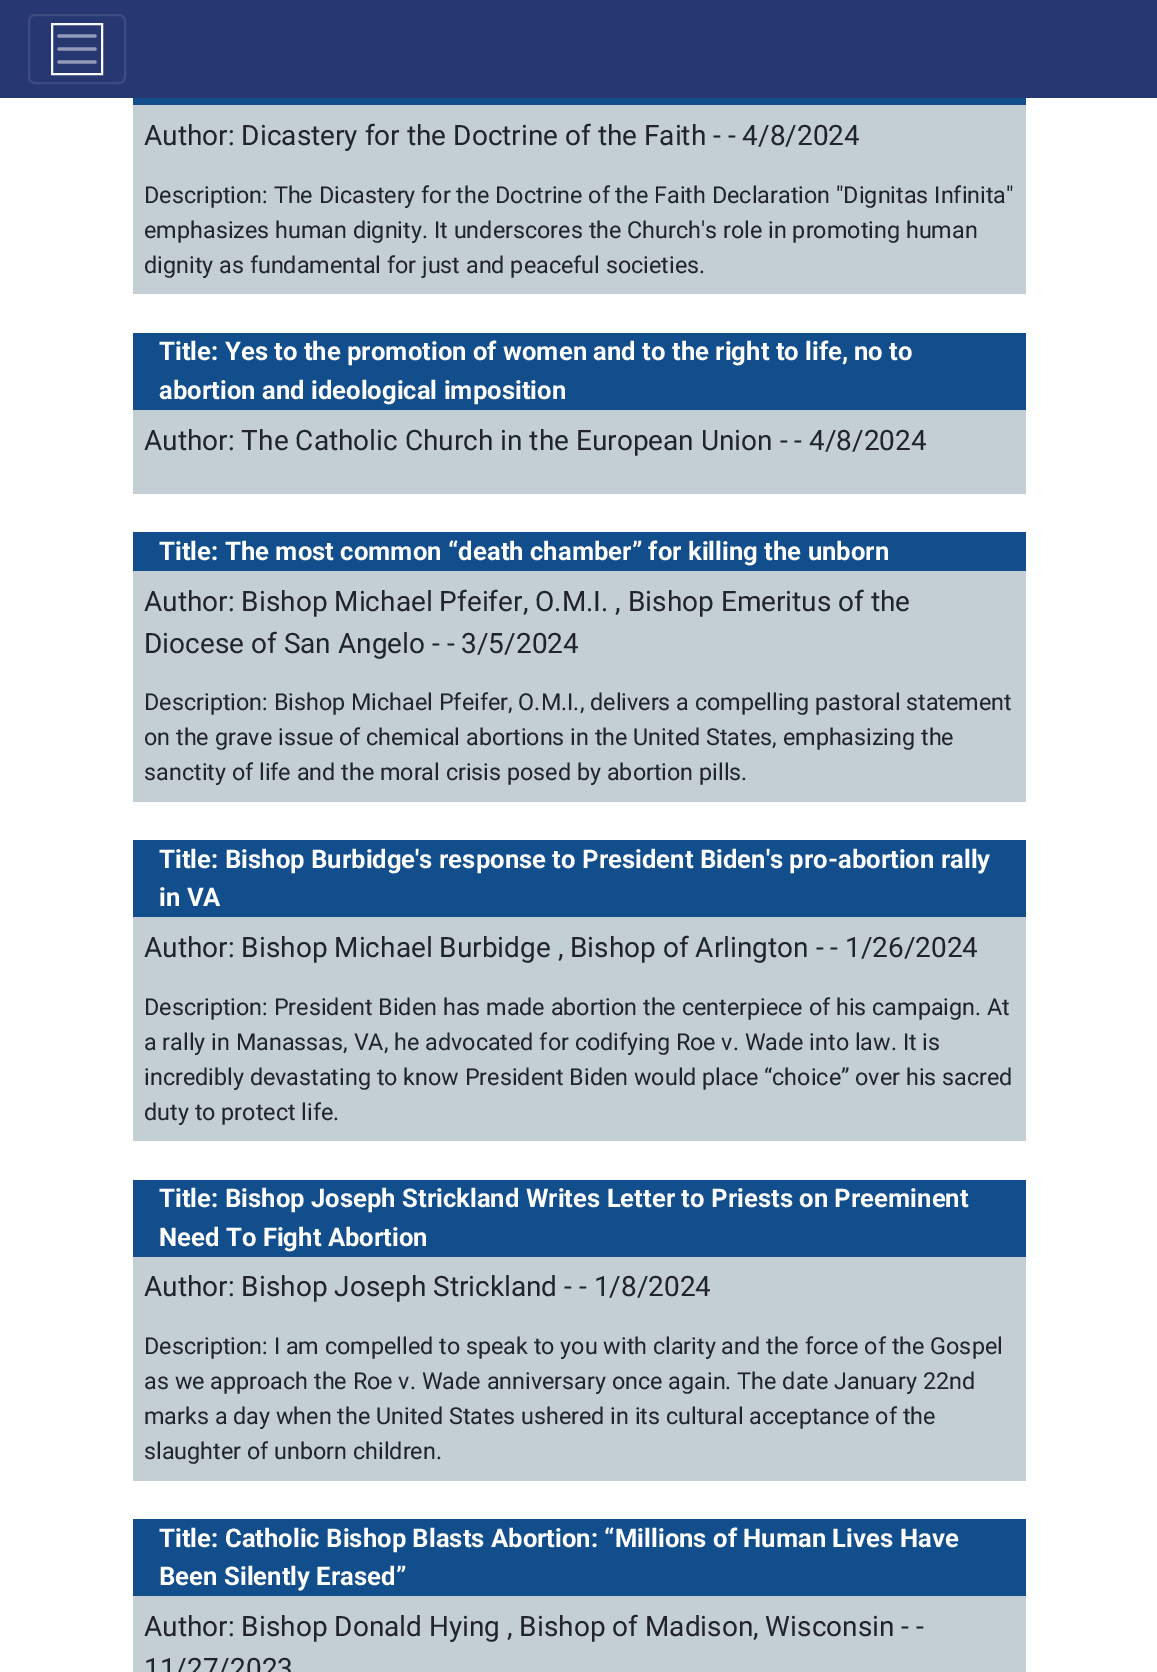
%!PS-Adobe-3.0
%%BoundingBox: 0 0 1157 1672
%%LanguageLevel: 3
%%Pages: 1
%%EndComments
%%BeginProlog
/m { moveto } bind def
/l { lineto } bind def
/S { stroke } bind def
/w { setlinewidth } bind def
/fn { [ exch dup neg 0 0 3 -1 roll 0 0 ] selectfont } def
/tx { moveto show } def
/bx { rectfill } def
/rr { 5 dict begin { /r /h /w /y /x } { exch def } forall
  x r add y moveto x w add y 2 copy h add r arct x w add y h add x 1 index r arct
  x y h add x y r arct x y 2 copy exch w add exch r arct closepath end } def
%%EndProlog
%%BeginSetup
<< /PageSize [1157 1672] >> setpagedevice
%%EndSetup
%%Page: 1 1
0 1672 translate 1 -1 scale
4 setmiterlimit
1 setgray
0 0 1157 1672 bx
0.153 0.216 0.447 setrgbcolor
0 0 1157 98 bx
0.239 0.294 0.502 setrgbcolor
2 w
29 15 96 68 6 rr S
0.576 0.608 0.725 setrgbcolor
3.3 w
1 setlinecap
59 36 m 95 36 l 59 49 m 95 49 l 59 62 m 95 62 l S
0.973 0.976 0.98 setrgbcolor
2 w
0 setlinecap
52 24 50 50 rectstroke
0.769 0.808 0.835 setrgbcolor
133 105 893 189 bx
0.067 0.306 0.545 setrgbcolor
133 98 893 7 bx
/Roboto-Regular 28 fn
0.129 0.145 0.161 setrgbcolor
(Author: Dicastery for the Doctrine of the Faith - - 4/8/2024) 144 145 tx
/Roboto-Regular 23.35 fn
(Description: The Dicastery for the Doctrine of the Faith Declaration "Dignitas Infinita") 144 203 tx
(emphasizes human dignity. It underscores the Church's role in promoting human) 144 238 tx
(dignity as fundamental for just and peaceful societies.) 144 273 tx
0.769 0.808 0.835 setrgbcolor
133 410 893 84 bx
0.067 0.306 0.545 setrgbcolor
133 333 893 77 bx
/Roboto-Bold 25.7 fn
1 setgray
(Title: Yes to the promotion of women and to the right to life,) 159 360 tx
(no to) 854 360 tx
(abortion and ideological imposition) 159 399 tx
/Roboto-Regular 28 fn
0.129 0.145 0.161 setrgbcolor
(Author: The Catholic Church in the European Union - - 4/8/2024) 144 450 tx
0.769 0.808 0.835 setrgbcolor
133 571 893 231 bx
0.067 0.306 0.545 setrgbcolor
133 532 893 39 bx
/Roboto-Bold 25.7 fn
1 setgray
(Title: The most common “death chamber” for killing the unborn) 159 560 tx
/Roboto-Regular 28 fn
0.129 0.145 0.161 setrgbcolor
(Author: Bishop Michael Pfeifer, O.M.I. , Bishop Emeritus of the) 144 611 tx
(Diocese of San Angelo - - 3/5/2024) 144 653 tx
/Roboto-Regular 23.35 fn
(Description: Bishop Michael Pfeifer, O.M.I., delivers a compelling pastoral statement) 144 710 tx
(on the grave issue of chemical abortions in the United States, emphasizing the) 144 745 tx
(sanctity of life and the moral crisis posed by abortion pills.) 144 780 tx
0.769 0.808 0.835 setrgbcolor
133 917 893 224 bx
0.067 0.306 0.545 setrgbcolor
133 840 893 77 bx
/Roboto-Bold 25.7 fn
1 setgray
(Title: Bishop Burbidge's response to President Biden's pro-abortion rally) 159 868 tx
(in VA) 159 906 tx
/Roboto-Regular 28 fn
0.129 0.145 0.161 setrgbcolor
(Author: Bishop Michael Burbidge , Bishop of Arlington - - 1/26/2024) 144 957 tx
/Roboto-Regular 23.35 fn
(Description: President Biden has made abortion the centerpiece of his campaign. At) 144 1015 tx
(a rally in Manassas, VA, he advocated for codifying Roe v. Wade into law. It is) 144 1050 tx
(incredibly devastating to know President Biden would place “choice” over his sacred) 144 1085 tx
(duty to protect life.) 144 1120 tx
0.769 0.808 0.835 setrgbcolor
133 1257 893 224 bx
0.067 0.306 0.545 setrgbcolor
133 1180 893 77 bx
/Roboto-Bold 25.7 fn
1 setgray
(Title: Bishop Joseph Strickland Writes Letter to Priests on Preeminent) 159 1207 tx
(Need To Fight Abortion) 159 1246 tx
/Roboto-Regular 28 fn
0.129 0.145 0.161 setrgbcolor
(Author: Bishop Joseph Strickland - - 1/8/2024) 144 1296 tx
/Roboto-Regular 23.35 fn
(Description: I am compelled to speak to you with clarity and the force of the Gospel) 144 1354 tx
(as we approach the Roe v. Wade anniversary once again. The date January 22nd) 144 1389 tx
(marks a day when the United States ushered in its cultural acceptance of the) 144 1424 tx
(slaughter of unborn children.) 144 1459 tx
0.769 0.808 0.835 setrgbcolor
133 1596 893 76 bx
0.067 0.306 0.545 setrgbcolor
133 1519 893 77 bx
/Roboto-Bold 25.7 fn
1 setgray
(Title: Catholic Bishop Blasts Abortion: “Millions of Human Lives Have) 159 1547 tx
(Been Silently Erased”) 159 1585 tx
/Roboto-Regular 28 fn
0.129 0.145 0.161 setrgbcolor
(Author: Bishop Donald Hying , Bishop of Madison, Wisconsin - -) 144 1636 tx
(11/27/2023) 144 1678 tx
showpage
%%EOF
